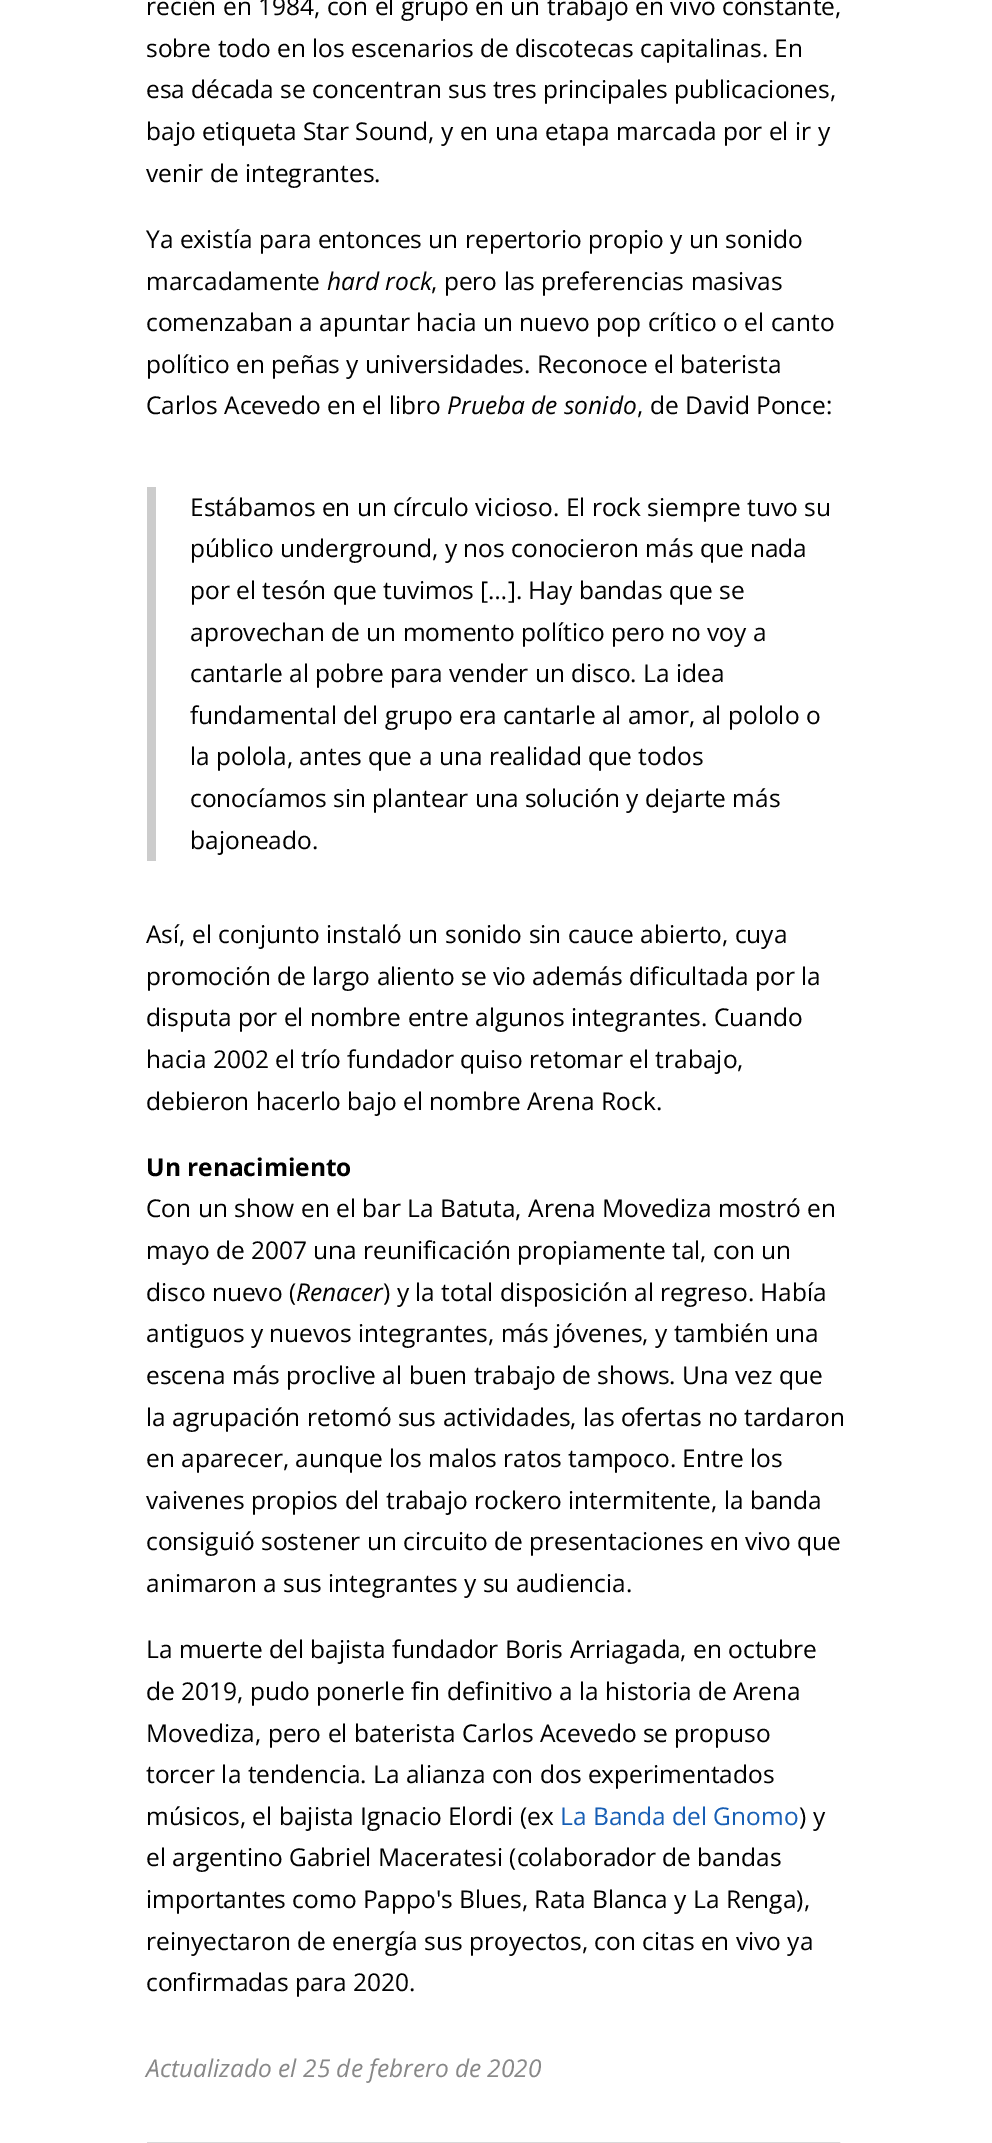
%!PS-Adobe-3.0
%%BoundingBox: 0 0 992 2143
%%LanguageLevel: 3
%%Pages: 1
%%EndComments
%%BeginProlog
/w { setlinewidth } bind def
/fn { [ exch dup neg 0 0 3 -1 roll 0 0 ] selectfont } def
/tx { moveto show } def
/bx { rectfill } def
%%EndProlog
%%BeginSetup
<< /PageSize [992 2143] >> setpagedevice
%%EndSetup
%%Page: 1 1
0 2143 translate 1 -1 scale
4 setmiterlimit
1 setgray
0 0 992 2143 bx
/OpenSans-Regular 24.5 fn
0 setgray
(recién en 1984, con el grupo en un trabajo en vivo constante,) 146 15 tx
(sobre todo en los escenarios de discotecas capitalinas. En) 146 57 tx
(esa década se concentran sus tres principales publicaciones,) 146 98 tx
(bajo etiqueta Star Sound, y en una etapa marcada por el ir y) 146 140 tx
(venir de integrantes.) 146 182 tx
(Ya existía para entonces un repertorio propio y un sonido) 146 248 tx
(marcadamente) 146 290 tx
/OpenSans-Italic 24.5 fn
(hard rock) 327 290 tx
/OpenSans-Regular 24.5 fn
(, pero las preferencias masivas) 431 290 tx
(comenzaban a apuntar hacia un nuevo pop crítico o el canto) 146 331 tx
(político en peñas y universidades. Reconoce el baterista) 146 373 tx
(Carlos Acevedo en el libro) 146 414 tx
/OpenSans-Italic 24.5 fn
(Prueba de sonido) 447 414 tx
/OpenSans-Regular 24.5 fn
(, de David Ponce:) 637 414 tx
0.8 setgray
147 487 9 374 bx
0 setgray
(Estábamos en un círculo vicioso. El rock siempre tuvo su) 190 516 tx
(público underground, y nos conocieron más que nada) 190 557 tx
(por el tesón que tuvimos […]. Hay bandas que se) 190 599 tx
(aprovechan de un momento político pero no voy a) 190 641 tx
(cantarle al pobre para vender un disco. La idea) 190 682 tx
(fundamental del grupo era cantarle al amor, al pololo o) 190 724 tx
(la polola, antes que a una realidad que todos) 190 765 tx
(conocíamos sin plantear una solución y dejarte más) 190 807 tx
(bajoneado.) 190 849 tx
(Así, el conjunto instaló un sonido sin cauce abierto, cuya) 146 943 tx
(promoción de largo aliento se vio además dificultada por la) 146 985 tx
(disputa por el nombre entre algunos integrantes. Cuando) 146 1026 tx
(hacia 2002 el trío fundador quiso retomar el trabajo,) 146 1068 tx
(debieron hacerlo bajo el nombre Arena Rock.) 146 1110 tx
/OpenSans-Bold 24.5 fn
(Un renacimiento) 146 1176 tx
/OpenSans-Regular 24.5 fn
(Con un show en el bar La Batuta, Arena Movediza mostró en) 146 1217 tx
(mayo de 2007 una reunificación propiamente tal, con un) 146 1259 tx
(disco nuevo \() 146 1301 tx
/OpenSans-Italic 24.5 fn
(Renacer) 296 1301 tx
/OpenSans-Regular 24.5 fn
(\) y la total disposición al regreso. Había) 383 1301 tx
(antiguos y nuevos integrantes, más jóvenes, y también una) 146 1342 tx
(escena más proclive al buen trabajo de shows. Una vez que) 146 1384 tx
(la agrupación retomó sus actividades, las ofertas no tardaron) 146 1426 tx
(en aparecer, aunque los malos ratos tampoco. Entre los) 146 1467 tx
(vaivenes propios del trabajo rockero intermitente, la banda) 146 1509 tx
(consiguió sostener un circuito de presentaciones en vivo que) 146 1550 tx
(animaron a sus integrantes y su audiencia.) 146 1592 tx
(La muerte del bajista fundador Boris Arriagada, en octubre) 146 1658 tx
(de 2019, pudo ponerle fin definitivo a la historia de Arena) 146 1700 tx
(Movediza, pero el baterista Carlos Acevedo se propuso) 146 1742 tx
(torcer la tendencia. La alianza con dos experimentados) 146 1783 tx
(músicos, el bajista Ignacio Elordi \(ex) 146 1825 tx
0.086 0.369 0.71 setrgbcolor
(La Banda del Gnomo) 560 1825 tx
0 setgray
(\) y) 799 1825 tx
(el argentino Gabriel Maceratesi \(colaborador de bandas) 146 1866 tx
(importantes como Pappo's Blues, Rata Blanca y La Renga\),) 146 1908 tx
(reinyectaron de energía sus proyectos, con citas en vivo ya) 146 1950 tx
(confirmadas para 2020.) 146 1991 tx
/OpenSans-Italic 24.5 fn
0.533 setgray
(Actualizado el 25 de febrero de 2020) 146 2077 tx
0.851 setgray
2 w
148 2143 691 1 rectstroke
showpage
%%EOF
